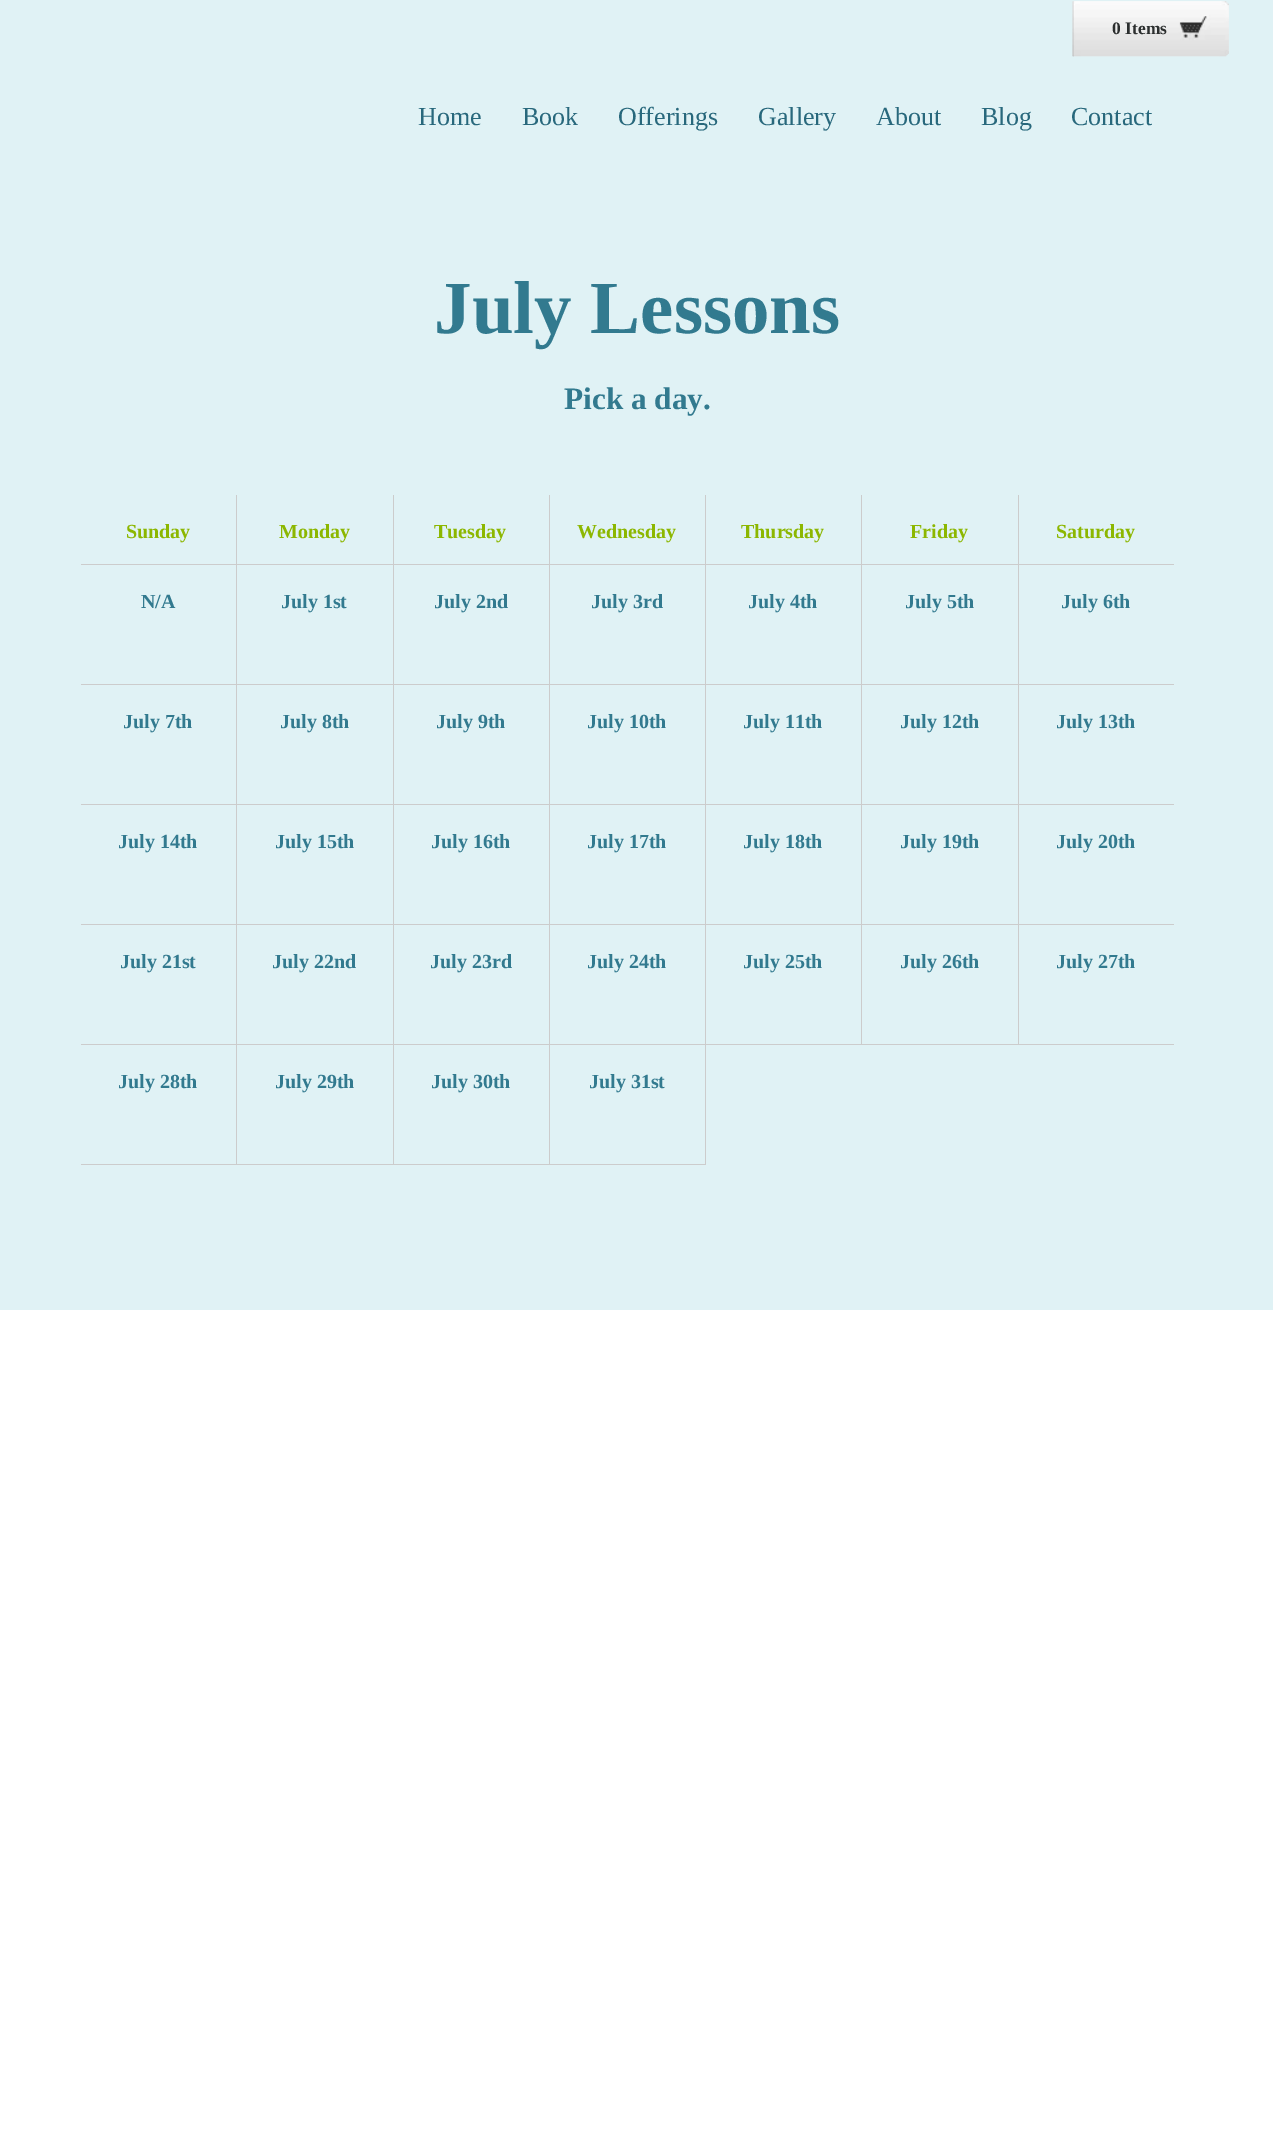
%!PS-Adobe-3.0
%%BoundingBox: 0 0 1273 2154
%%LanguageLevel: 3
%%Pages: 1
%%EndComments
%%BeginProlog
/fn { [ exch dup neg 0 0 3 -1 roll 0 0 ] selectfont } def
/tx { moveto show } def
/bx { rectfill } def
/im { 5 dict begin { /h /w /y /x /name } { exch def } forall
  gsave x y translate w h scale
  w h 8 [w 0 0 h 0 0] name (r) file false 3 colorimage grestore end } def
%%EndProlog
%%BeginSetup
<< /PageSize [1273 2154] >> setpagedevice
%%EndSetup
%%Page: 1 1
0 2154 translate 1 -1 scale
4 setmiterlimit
1 setgray
0 0 1273 2154 bx
0.878 0.949 0.961 setrgbcolor
0 0 1273 1310 bx
(image0.raw) 1072 1 157 56 im
(image1.raw) 1072 1 157 56 im
/LiberationSerif-Bold 17.5 fn
0.173 0.184 0.184 setrgbcolor
(0 Items) 1112 34 tx
/LiberationSerif-Regular 26 fn
0.157 0.408 0.486 setrgbcolor
(Home) 418 125 tx
(Book) 522 125 tx
(Offerings) 618 125 tx
(Gallery) 758 125 tx
(About) 876 125 tx
(Blog) 981 125 tx
(Contact) 1071 125 tx
/LiberationSerif-Bold 75 fn
0.196 0.478 0.561 setrgbcolor
(July Lessons) 434 333 tx
/LiberationSerif-Bold 31.25 fn
(Pick a day.) 564 409 tx
0.8 setgray
236 495 1 670 bx
81 564 157 1 bx
/LiberationSerif-Bold 20 fn
0.549 0.718 0 setrgbcolor
(Sunday) 126 538 tx
0.8 setgray
393 495 1 670 bx
238 564 156 1 bx
0.549 0.718 0 setrgbcolor
(Monday) 279 538 tx
0.8 setgray
549 495 1 670 bx
394 564 156 1 bx
0.549 0.718 0 setrgbcolor
(Tuesday) 434 538 tx
0.8 setgray
705 495 1 670 bx
550 564 156 1 bx
0.549 0.718 0 setrgbcolor
(Wednesday) 577 538 tx
0.8 setgray
861 495 1 550 bx
706 564 157 1 bx
0.549 0.718 0 setrgbcolor
(Thursday) 741 538 tx
0.8 setgray
1018 495 1 550 bx
863 564 311 1 bx
0.549 0.718 0 setrgbcolor
(Friday) 910 538 tx
(Saturday) 1056 538 tx
0.8 setgray
81 684 1093 1 bx
0.196 0.478 0.561 setrgbcolor
(N/A) 141 608 tx
(July 1st) 281 608 tx
(July 2nd) 434 608 tx
(July 3rd) 591 608 tx
(July 4th) 748 608 tx
(July 5th) 905 608 tx
(July 6th) 1061 608 tx
0.8 setgray
81 804 1093 1 bx
0.196 0.478 0.561 setrgbcolor
(July 7th) 123 728 tx
(July 8th) 280 728 tx
(July 9th) 436 728 tx
(July 10th) 587 728 tx
(July 11th) 743 728 tx
(July 12th) 900 728 tx
(July 13th) 1056 728 tx
0.8 setgray
81 924 1093 1 bx
0.196 0.478 0.561 setrgbcolor
(July 14th) 118 848 tx
(July 15th) 275 848 tx
(July 16th) 431 848 tx
(July 17th) 587 848 tx
(July 18th) 743 848 tx
(July 19th) 900 848 tx
(July 20th) 1056 848 tx
0.8 setgray
81 1044 1093 1 bx
0.196 0.478 0.561 setrgbcolor
(July 21st) 120 968 tx
(July 22nd) 272 968 tx
(July 23rd) 430 968 tx
(July 24th) 587 968 tx
(July 25th) 743 968 tx
(July 26th) 900 968 tx
(July 27th) 1056 968 tx
0.8 setgray
81 1164 625 1 bx
0.196 0.478 0.561 setrgbcolor
(July 28th) 118 1088 tx
(July 29th) 275 1088 tx
(July 30th) 431 1088 tx
(July 31st) 589 1088 tx
showpage
%%EOF
